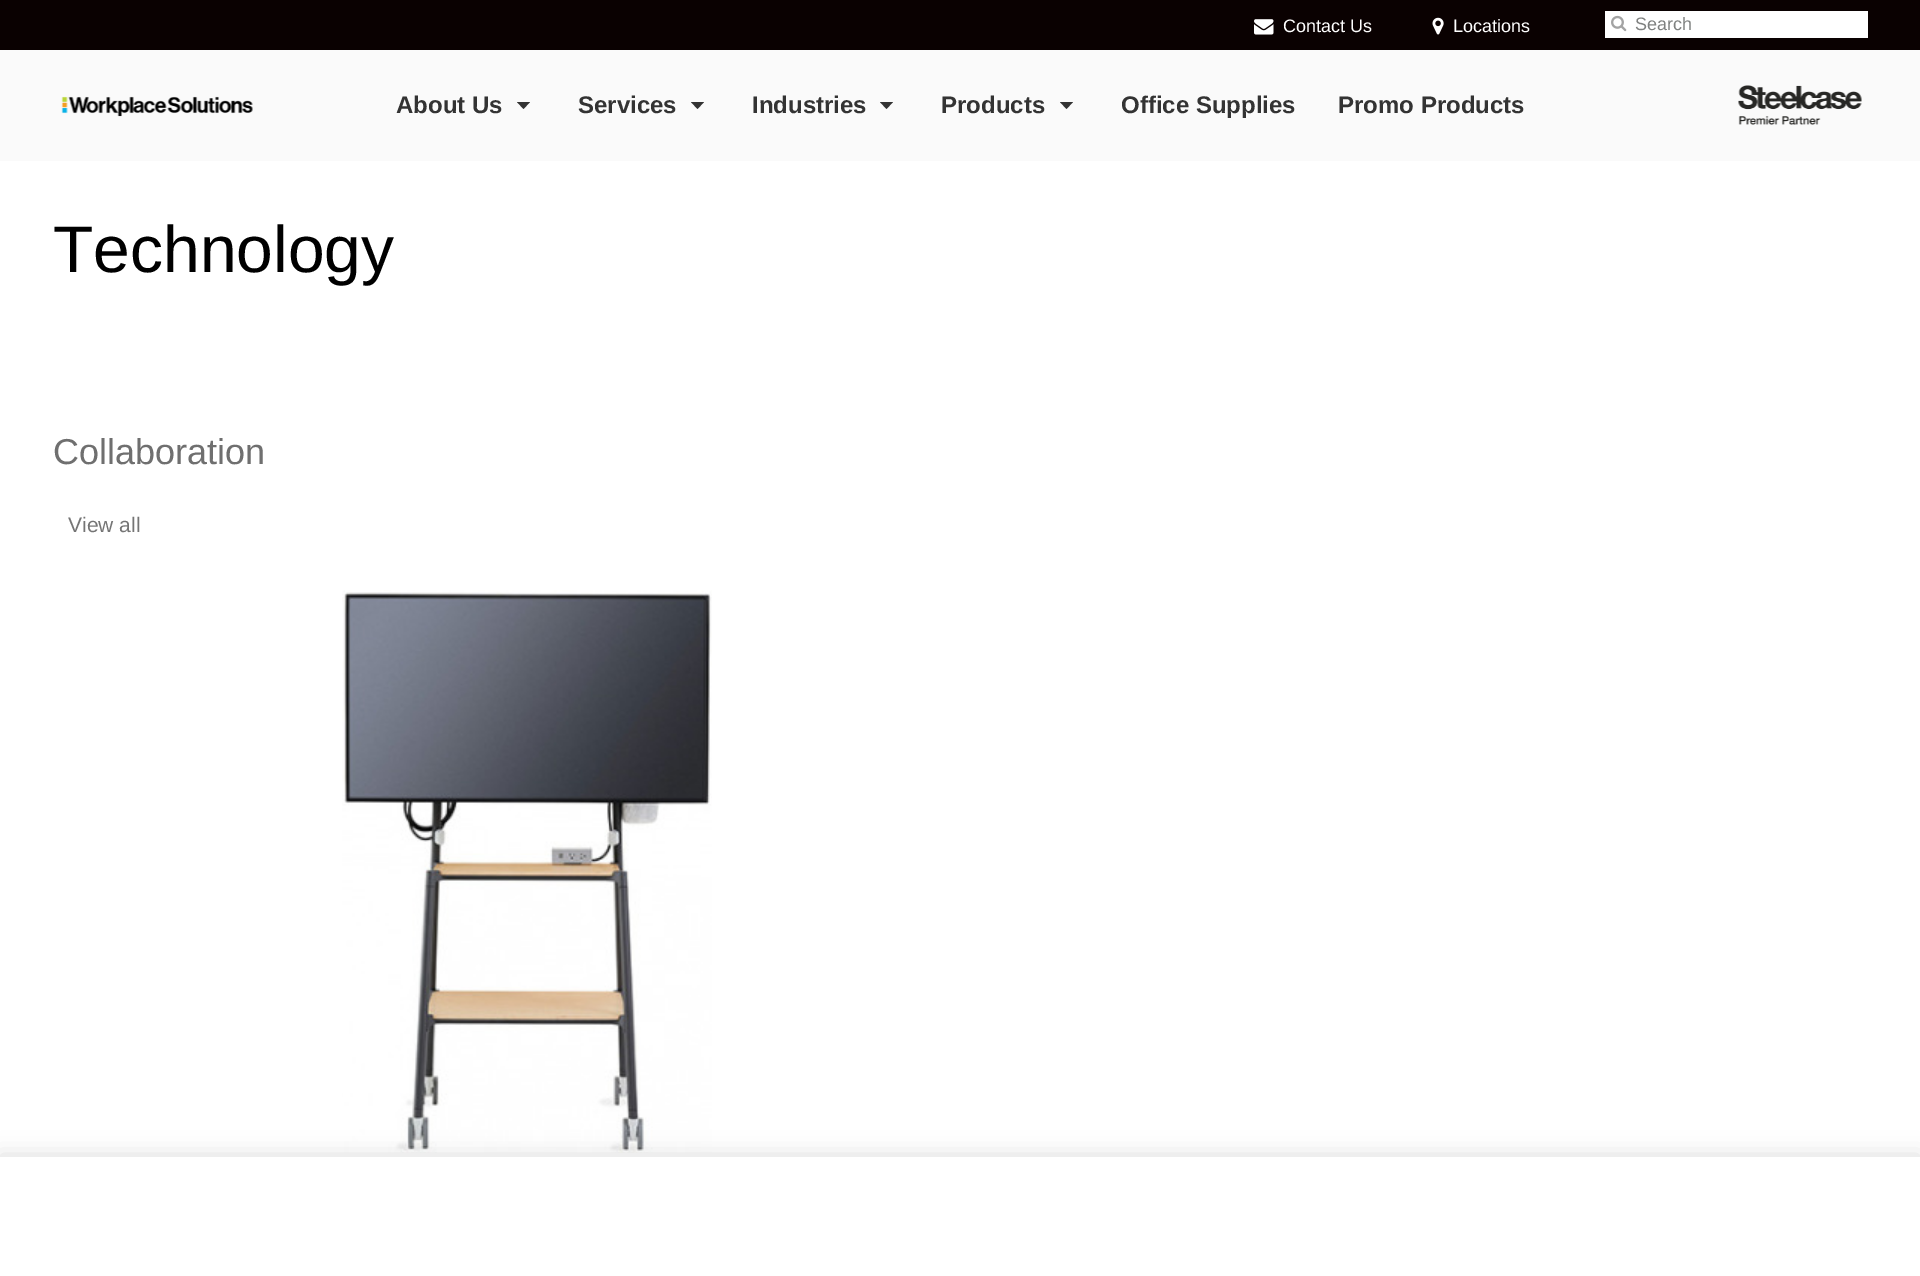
%!PS-Adobe-3.0
%%BoundingBox: 0 0 1920 1276
%%LanguageLevel: 3
%%Pages: 1
%%EndComments
%%BeginProlog
/m { moveto } bind def
/l { lineto } bind def
/h { closepath } bind def
/f { fill } bind def
/fn { [ exch dup neg 0 0 3 -1 roll 0 0 ] selectfont } def
/tx { moveto show } def
/bx { rectfill } def
/al { dup .setfillconstantalpha .setstrokeconstantalpha } def
/rr { 5 dict begin { /r /h /w /y /x } { exch def } forall
  x r add y moveto x w add y 2 copy h add r arct x w add y h add x 1 index r arct
  x y h add x y r arct x y 2 copy exch w add exch r arct closepath end } def
/sh { 12 dict begin { /a /b /q /h /w /y /x } { exch def } forall gsave /was 0 def
  9 -2 -9 { dup b mul 4 div /e exch def 1 sub .425 mul 2.718 exch exp 1 add a .99 .min exch div /now exch def
    1 1 now sub 1 was sub div sub al /was now def
    w h .min e 2 mul add 0 gt { x e sub y e sub w e 2 mul add h e 2 mul add
      q e add b .6 mul add w h .min 2 div e add .min 0 .max rr fill } if } for grestore end } def
/im { 5 dict begin { /h /w /y /x /name } { exch def } forall
  gsave x y translate w h scale
  w h 8 [w 0 0 h 0 0] name (r) file false 3 colorimage grestore end } def
%%EndProlog
%%BeginSetup
<< /PageSize [1920 1276] /PageUsesTransparency true >> setpagedevice
%%EndSetup
%%Page: 1 1
0 .pushpdf14devicefilter
0 1276 translate 1 -1 scale
4 setmiterlimit
1 setgray
0 0 1920 1276 bx
0.98 setgray
0 50 1920 111 bx
0.039 0.004 0.004 setrgbcolor
0 0 1920 50 bx
(image0.raw) 1254 19 20 16 im
/LiberationSans-Regular 18 fn
1 setgray
(Contact Us) 1283 32 tx
(image1.raw) 1432 17 12 18 im
(Locations) 1453 32 tx
1605 11 263 27 bx
(image2.raw) 1611 15 16 17 im
0.498 0.506 0.502 setrgbcolor
(Search) 1635 30 tx
(image3.raw) 61 96 192 21 im
/LiberationSans-Bold 24 fn
0.2 setgray
(About Us) 396 113 tx
517 102 m 523.5 109 l 530 102 l h f
(Services) 578 113 tx
691 102 m 697.5 109 l 704 102 l h f
(Industries) 752 113 tx
880 102 m 886.5 109 l 893 102 l h f
(Products) 941 113 tx
1060 102 m 1066.5 109 l 1073 102 l h f
(Office Supplies) 1121 113 tx
(Promo Products) 1338 113 tx
(image4.raw) 1738 85 124 40 im
/LiberationSans-Regular 66 fn
0 setgray
(Technology) 53 272 tx
/LiberationSans-Regular 36 fn
0.435 setgray
(Collaboration) 53 464 tx
/LiberationSans-Regular 21 fn
0.459 setgray
(View all) 68 532 tx
(image5.raw) 342 590 370 563 im
0 setgray
0 1155 1920 120 0 11 0.13 sh
1 setgray
0 1157 1920 119 bx
.poppdf14devicefilter showpage
%%EOF
